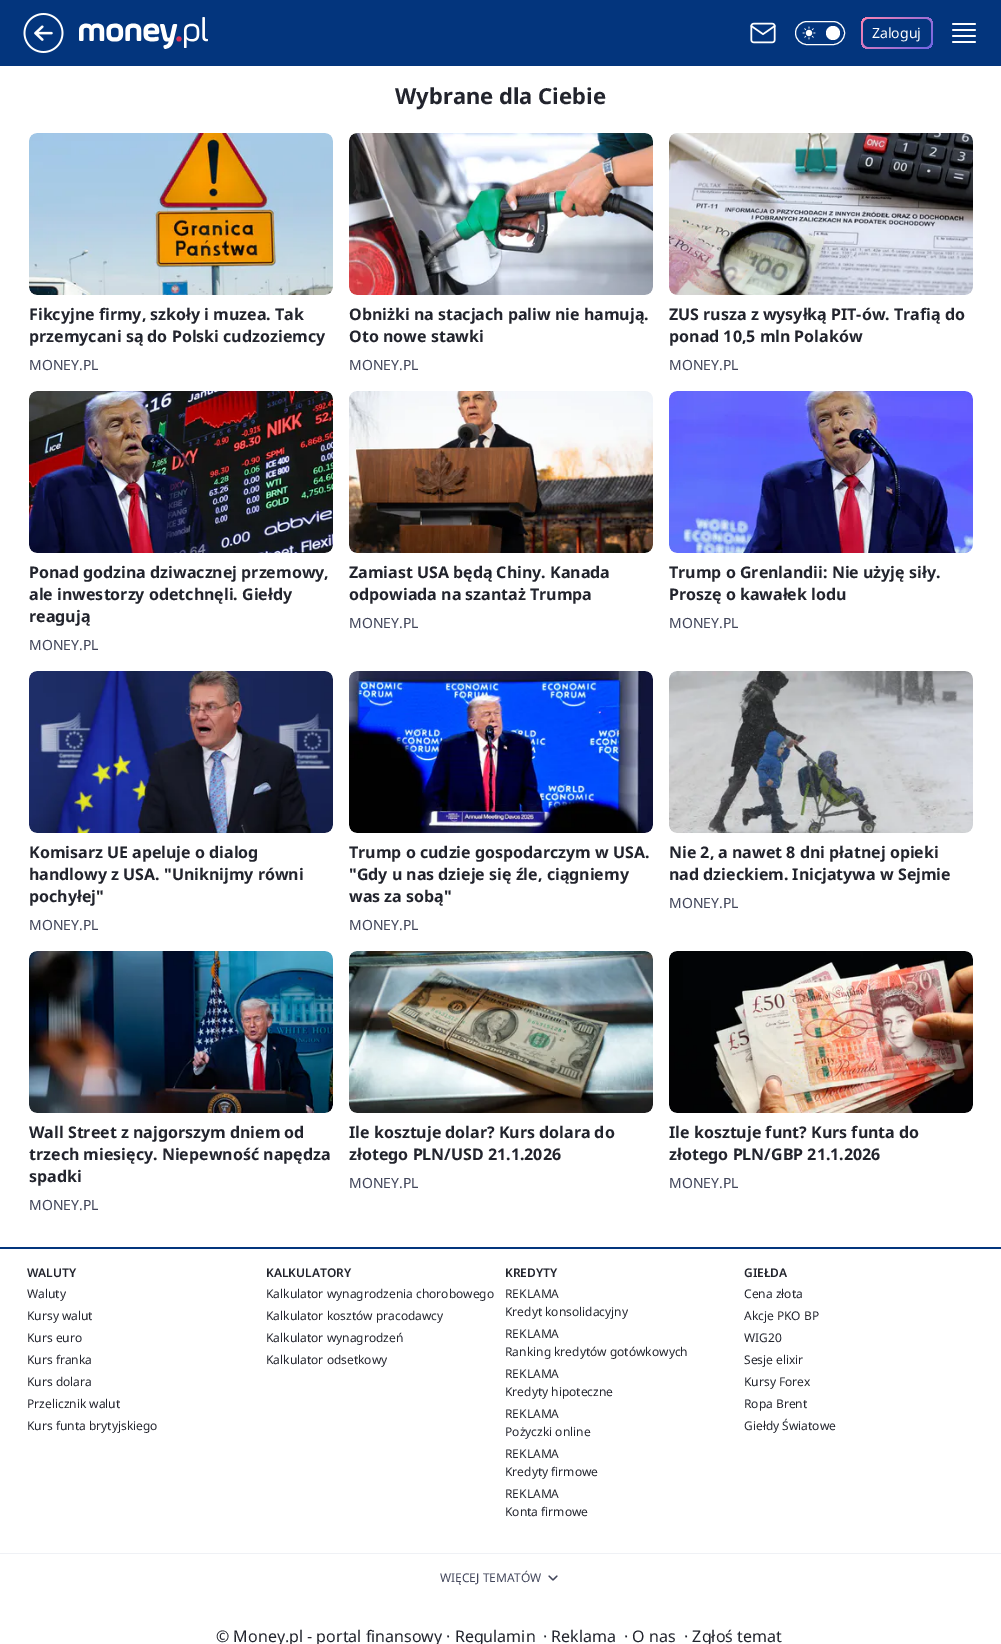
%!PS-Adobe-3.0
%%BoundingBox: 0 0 1001 1644
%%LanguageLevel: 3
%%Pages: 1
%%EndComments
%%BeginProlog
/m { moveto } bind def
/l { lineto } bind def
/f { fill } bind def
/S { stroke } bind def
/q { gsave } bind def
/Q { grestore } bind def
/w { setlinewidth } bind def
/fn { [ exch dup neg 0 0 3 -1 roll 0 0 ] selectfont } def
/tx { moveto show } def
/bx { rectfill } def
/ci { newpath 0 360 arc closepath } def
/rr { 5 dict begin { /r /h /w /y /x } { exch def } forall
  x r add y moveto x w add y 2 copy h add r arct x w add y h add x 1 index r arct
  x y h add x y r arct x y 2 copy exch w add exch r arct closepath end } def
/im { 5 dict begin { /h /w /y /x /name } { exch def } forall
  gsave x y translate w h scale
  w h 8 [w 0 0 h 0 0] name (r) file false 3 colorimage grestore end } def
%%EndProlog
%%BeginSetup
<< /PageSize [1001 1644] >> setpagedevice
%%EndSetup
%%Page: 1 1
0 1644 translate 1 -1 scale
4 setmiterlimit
1 setgray
0 0 1001 1644 bx
0.012 0.208 0.49 setrgbcolor
0 0 1001 66 bx
(image0.raw) 23 13 41 40 im
(image1.raw) 79 17 129 32 im
(image2.raw) 750 22 26 22 im
1 setgray
795.5 21.5 49 23 11.5 rr S
(image3.raw) 802 26 14 14 im
833 33 7 ci f
q 861 17 72 32 8 rr clip newpath
<< /ShadingType 2 /ColorSpace /DeviceRGB /Coords [871 7 923 59] /Extend [true true] /Function << /FunctionType 2 /Domain [0 1] /C0 [1 0.518 0.69] /C1 [0.431 0.396 0.898] /N 1 >> >> shfill Q
0.012 0.208 0.49 setrgbcolor
863 19 68 28 6 rr f
/NotoSans-Regular 14 fn
1 setgray
(Zaloguj) 872 38 tx
1.8 w
1 setlinecap
1 setlinejoin
953 36 m 975 36 l 953 30 m 975 30 l 953 24 m 975 24 l 953 42 m 975 42 l S
/NotoSans-Bold 22 fn
0.133 0.141 0.176 setrgbcolor
(Wybrane dla Ciebie) 395 104 tx
0.969 0.973 0.98 setrgbcolor
29 133 304 162 8 rr f
(image4.raw) 29 133 304 162 im
/NotoSans-Bold 16 fn
0.133 0.141 0.176 setrgbcolor
(Fikcyjne firmy, szkoły i muzea. Tak) 29 320 tx
(przemycani są do Polski cudzoziemcy) 29 342 tx
/NotoSans-Regular 14 fn
0.255 0.271 0.353 setrgbcolor
(MONEY.PL) 29 370 tx
0.969 0.973 0.98 setrgbcolor
349 133 304 162 8 rr f
(image5.raw) 349 133 304 162 im
/NotoSans-Bold 16 fn
0.133 0.141 0.176 setrgbcolor
(Obniżki na stacjach paliw nie hamują.) 349 320 tx
(Oto nowe stawki) 349 342 tx
/NotoSans-Regular 14 fn
0.255 0.271 0.353 setrgbcolor
(MONEY.PL) 349 370 tx
0.969 0.973 0.98 setrgbcolor
669 133 304 162 8 rr f
(image6.raw) 669 133 304 162 im
/NotoSans-Bold 16 fn
0.133 0.141 0.176 setrgbcolor
(ZUS rusza z wysyłką PIT-ów. Trafią do) 669 320 tx
(ponad 10,5 mln Polaków) 669 342 tx
/NotoSans-Regular 14 fn
0.255 0.271 0.353 setrgbcolor
(MONEY.PL) 669 370 tx
0.969 0.973 0.98 setrgbcolor
29 391 304 162 8 rr f
(image7.raw) 29 391 304 162 im
/NotoSans-Bold 16 fn
0.133 0.141 0.176 setrgbcolor
(Ponad godzina dziwacznej przemowy,) 29 578 tx
(ale inwestorzy odetchnęli. Giełdy) 29 600 tx
(reagują) 29 622 tx
/NotoSans-Regular 14 fn
0.255 0.271 0.353 setrgbcolor
(MONEY.PL) 29 650 tx
0.969 0.973 0.98 setrgbcolor
349 391 304 162 8 rr f
(image8.raw) 349 391 304 162 im
/NotoSans-Bold 16 fn
0.133 0.141 0.176 setrgbcolor
(Zamiast USA będą Chiny. Kanada) 349 578 tx
(odpowiada na szantaż Trumpa) 349 600 tx
/NotoSans-Regular 14 fn
0.255 0.271 0.353 setrgbcolor
(MONEY.PL) 349 628 tx
0.969 0.973 0.98 setrgbcolor
669 391 304 162 8 rr f
(image9.raw) 669 391 304 162 im
/NotoSans-Bold 16 fn
0.133 0.141 0.176 setrgbcolor
(Trump o Grenlandii: Nie użyję siły.) 669 578 tx
(Proszę o kawałek lodu) 669 600 tx
/NotoSans-Regular 14 fn
0.255 0.271 0.353 setrgbcolor
(MONEY.PL) 669 628 tx
0.969 0.973 0.98 setrgbcolor
29 671 304 162 8 rr f
(image10.raw) 29 671 304 162 im
/NotoSans-Bold 16 fn
0.133 0.141 0.176 setrgbcolor
(Komisarz UE apeluje o dialog) 29 858 tx
(handlowy z USA. "Uniknijmy równi) 29 880 tx
(pochyłej") 29 902 tx
/NotoSans-Regular 14 fn
0.255 0.271 0.353 setrgbcolor
(MONEY.PL) 29 930 tx
0.969 0.973 0.98 setrgbcolor
349 671 304 162 8 rr f
(image11.raw) 349 671 304 162 im
/NotoSans-Bold 16 fn
0.133 0.141 0.176 setrgbcolor
(Trump o cudzie gospodarczym w USA.) 349 858 tx
("Gdy u nas dzieje się źle, ciągniemy) 349 880 tx
(was za sobą") 349 902 tx
/NotoSans-Regular 14 fn
0.255 0.271 0.353 setrgbcolor
(MONEY.PL) 349 930 tx
0.969 0.973 0.98 setrgbcolor
669 671 304 162 8 rr f
(image12.raw) 669 671 304 162 im
/NotoSans-Bold 16 fn
0.133 0.141 0.176 setrgbcolor
(Nie 2, a nawet 8 dni płatnej opieki) 669 858 tx
(nad dzieckiem. Inicjatywa w Sejmie) 669 880 tx
/NotoSans-Regular 14 fn
0.255 0.271 0.353 setrgbcolor
(MONEY.PL) 669 908 tx
0.969 0.973 0.98 setrgbcolor
29 951 304 162 8 rr f
(image13.raw) 29 951 304 162 im
/NotoSans-Bold 16 fn
0.133 0.141 0.176 setrgbcolor
(Wall Street z najgorszym dniem od) 29 1138 tx
(trzech miesięcy. Niepewność napędza) 29 1160 tx
(spadki) 29 1182 tx
/NotoSans-Regular 14 fn
0.255 0.271 0.353 setrgbcolor
(MONEY.PL) 29 1210 tx
0.969 0.973 0.98 setrgbcolor
349 951 304 162 8 rr f
(image14.raw) 349 951 304 162 im
/NotoSans-Bold 16 fn
0.133 0.141 0.176 setrgbcolor
(Ile kosztuje dolar? Kurs dolara do) 349 1138 tx
(złotego PLN/USD 21.1.2026) 349 1160 tx
/NotoSans-Regular 14 fn
0.255 0.271 0.353 setrgbcolor
(MONEY.PL) 349 1188 tx
0.969 0.973 0.98 setrgbcolor
669 951 304 162 8 rr f
(image15.raw) 669 951 304 162 im
/NotoSans-Bold 16 fn
0.133 0.141 0.176 setrgbcolor
(Ile kosztuje funt? Kurs funta do) 669 1138 tx
(złotego PLN/GBP 21.1.2026) 669 1160 tx
/NotoSans-Regular 14 fn
0.255 0.271 0.353 setrgbcolor
(MONEY.PL) 669 1188 tx
0.012 0.208 0.49 setrgbcolor
0 1247 1001 2 bx
/NotoSans-SemiBold 12 fn
0.133 0.141 0.176 setrgbcolor
(WALUTY) 27 1277 tx
/NotoSans-Regular 12 fn
(Waluty) 27 1298 tx
(Kursy walut) 27 1320 tx
(Kurs euro) 27 1342 tx
(Kurs franka) 27 1364 tx
(Kurs dolara) 27 1386 tx
(Przelicznik walut) 27 1408 tx
(Kurs funta brytyjskiego) 27 1430 tx
/NotoSans-SemiBold 12 fn
(KALKULATORY) 266 1277 tx
/NotoSans-Regular 12 fn
(Kalkulator wynagrodzenia chorobowego) 266 1298 tx
(Kalkulator kosztów pracodawcy) 266 1320 tx
(Kalkulator wynagrodzeń) 266 1342 tx
(Kalkulator odsetkowy) 266 1364 tx
/NotoSans-SemiBold 12 fn
(KREDYTY) 505 1277 tx
/NotoSans-Regular 12 fn
(REKLAMA) 505 1298 tx
(Kredyt konsolidacyjny) 505 1316 tx
(REKLAMA) 505 1338 tx
(Ranking kredytów gotówkowych) 505 1356 tx
(REKLAMA) 505 1378 tx
(Kredyty hipoteczne) 505 1396 tx
(REKLAMA) 505 1418 tx
(Pożyczki online) 505 1436 tx
(REKLAMA) 505 1458 tx
(Kredyty firmowe) 505 1476 tx
(REKLAMA) 505 1498 tx
(Konta firmowe) 505 1516 tx
/NotoSans-SemiBold 12 fn
(GIEŁDA) 744 1277 tx
/NotoSans-Regular 12 fn
(Cena złota) 744 1298 tx
(Akcje PKO BP) 744 1320 tx
(WIG20) 744 1342 tx
(Sesje elixir) 744 1364 tx
(Kursy Forex) 744 1386 tx
(Ropa Brent) 744 1408 tx
(Giełdy Światowe) 744 1430 tx
0.937 0.945 0.961 setrgbcolor
0 1553 1001 1 bx
0.255 0.271 0.353 setrgbcolor
(WIĘCEJ TEMATÓW) 440 1582 tx
1.2 w
549 1576 m 553 1580 l 557 1576 l S
/NotoSans-Regular 16 fn
0.133 0.141 0.176 setrgbcolor
(© Money.pl - portal finansowy · Regulamin) 216 1642 tx
(· Reklama) 543 1642 tx
(· O nas) 624 1642 tx
(· Zgłoś temat) 684 1642 tx
showpage
%%EOF
